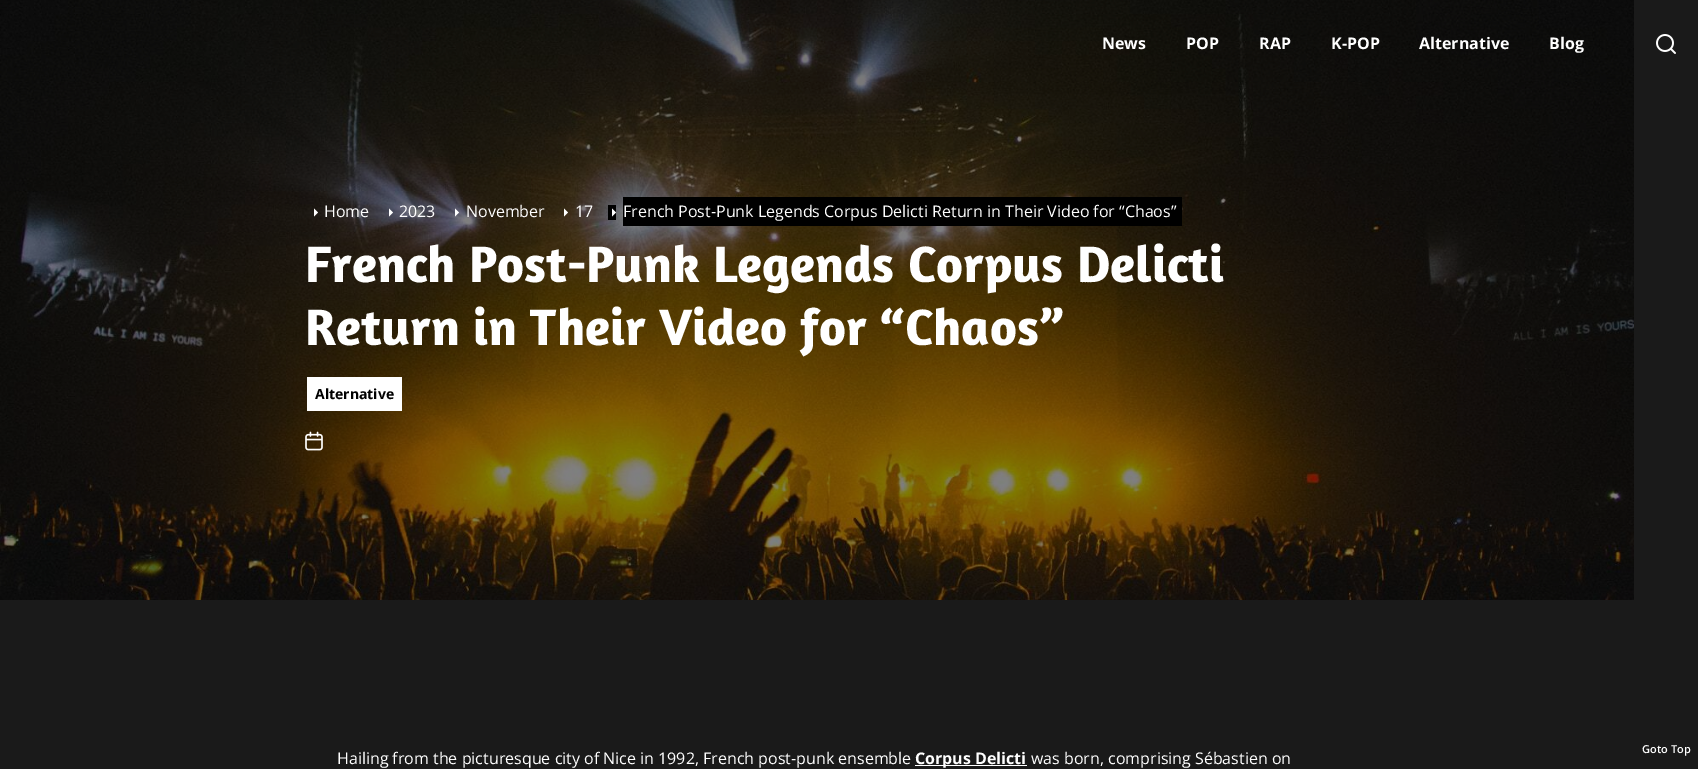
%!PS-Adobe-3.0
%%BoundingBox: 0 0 1698 769
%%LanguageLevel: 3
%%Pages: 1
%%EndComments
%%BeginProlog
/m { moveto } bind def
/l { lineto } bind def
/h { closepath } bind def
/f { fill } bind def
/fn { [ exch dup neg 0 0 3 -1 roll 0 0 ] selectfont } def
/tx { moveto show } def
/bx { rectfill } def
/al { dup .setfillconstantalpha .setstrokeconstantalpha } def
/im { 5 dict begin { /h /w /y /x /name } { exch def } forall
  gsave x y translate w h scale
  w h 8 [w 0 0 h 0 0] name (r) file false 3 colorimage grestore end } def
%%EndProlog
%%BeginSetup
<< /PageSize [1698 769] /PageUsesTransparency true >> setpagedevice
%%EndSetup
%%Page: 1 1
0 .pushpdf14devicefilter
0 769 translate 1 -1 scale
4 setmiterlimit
0.102 setgray
0 0 1698 769 bx
(image0.raw) 0 0 1634 600 im
0.05 al
0 setgray
655 0 589 94 bx
/OpenSans-Bold 16 fn
1 al
1 setgray
(News) 1102 49 tx
(POP) 1186 49 tx
(RAP) 1259 49 tx
(K-POP) 1331 49 tx
(Alternative) 1419 49 tx
(Blog) 1549 49 tx
314 216.5 m 314 208.5 l 318 212.5 l h f
/OpenSans-Regular 16 fn
(Home) 324 217 tx
389 216.5 m 389 208.5 l 393 212.5 l h f
(2023) 399 217 tx
455 216.5 m 455 208.5 l 459 212.5 l h f
(November) 466 217 tx
564 216.5 m 564 208.5 l 568 212.5 l h f
(17) 575 217 tx
0 setgray
608 205 8 15 bx
623 197 559 29 bx
1 setgray
612 216.5 m 612 208.5 l 616 212.5 l h f
(French Post-Punk Legends Corpus Delicti Return in Their Video for “Chaos”) 623 217 tx
/Amaranth-Bold 52 fn
(French Post-Punk Legends Corpus Delicti) 305 282 tx
(Return in Their Video for “Chaos”) 305 345 tx
307 377 95 34 bx
/OpenSans-Bold 14 fn
0 setgray
(Alternative) 315 399 tx
(image1.raw) 305 431 18 20 im
(image2.raw) 1656 34 20 20 im
/OpenSans-SemiBold 11 fn
1 setgray
(Goto Top) 1642 753 tx
/OpenSans-Regular 16 fn
(Hailing from the picturesque city of Nice in 1992, French post-punk ensemble) 337 764 tx
915 765 112 1 bx
/OpenSans-Bold 16 fn
(Corpus Delicti) 915 764 tx
/OpenSans-Regular 16 fn
(was born, comprising Sébastien on) 1031 764 tx
.poppdf14devicefilter showpage
%%EOF
